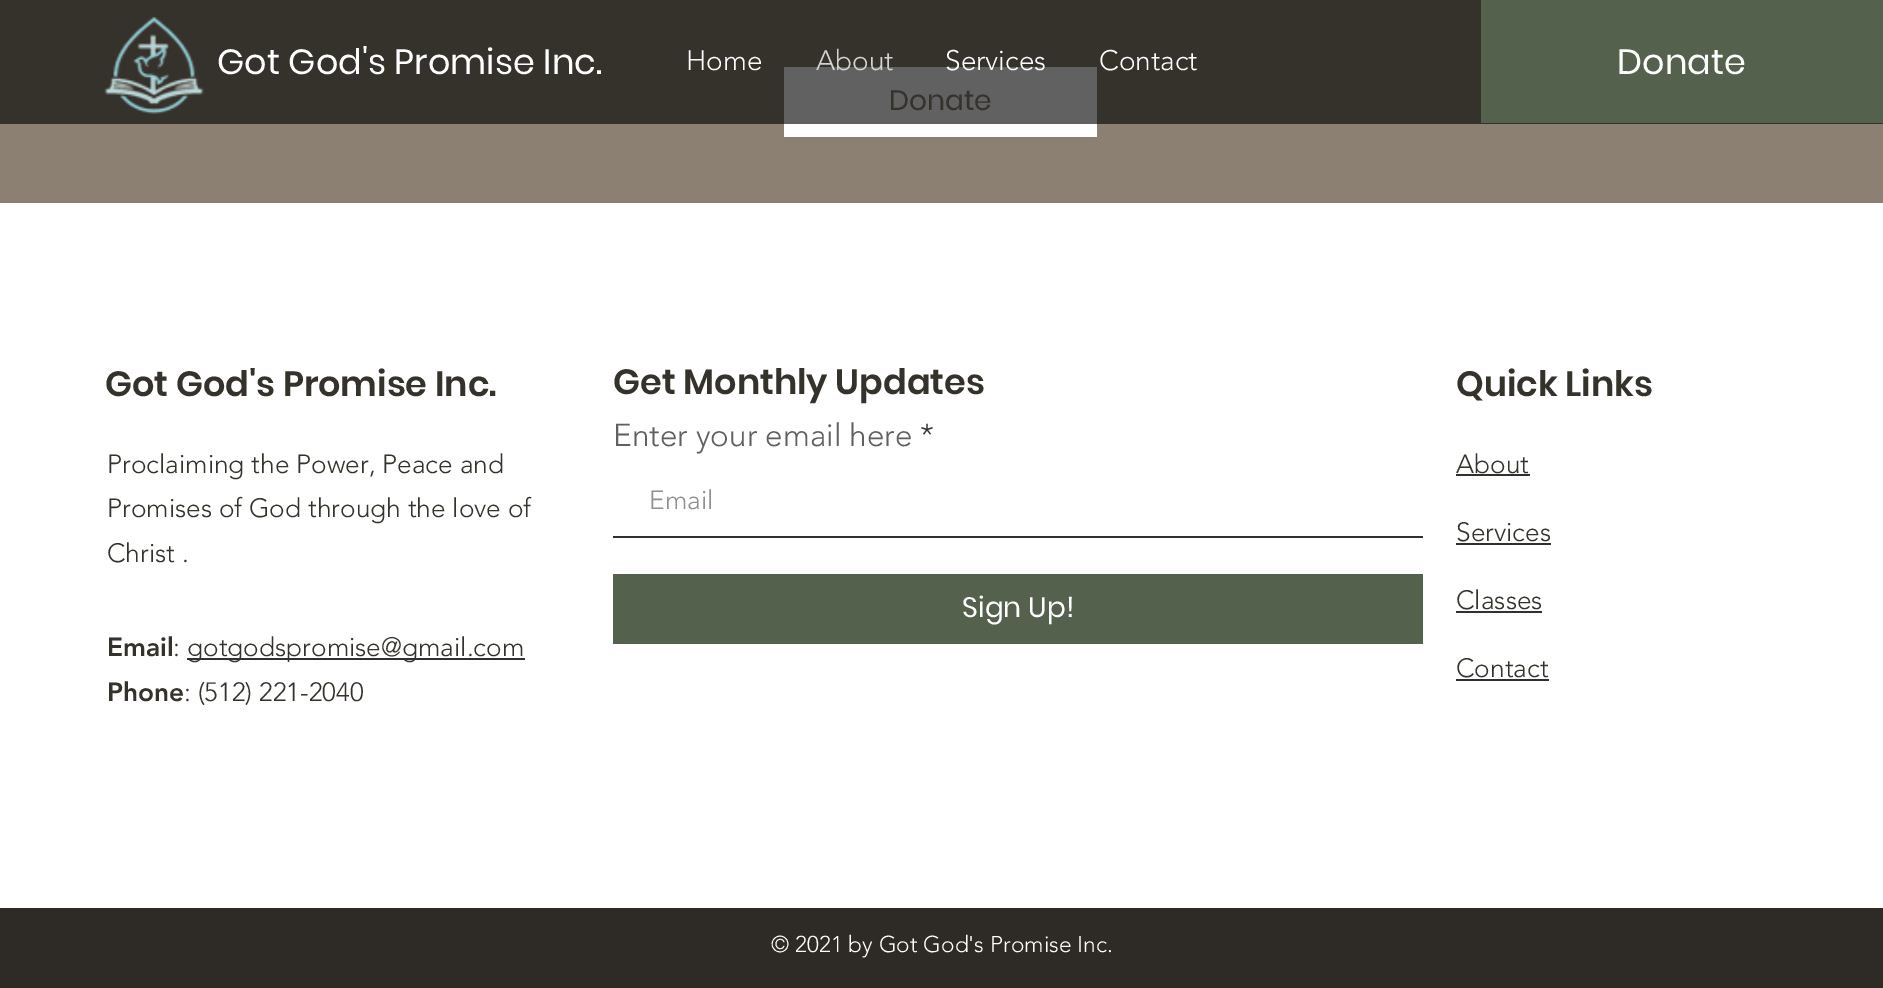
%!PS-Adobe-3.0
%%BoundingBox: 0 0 1883 988
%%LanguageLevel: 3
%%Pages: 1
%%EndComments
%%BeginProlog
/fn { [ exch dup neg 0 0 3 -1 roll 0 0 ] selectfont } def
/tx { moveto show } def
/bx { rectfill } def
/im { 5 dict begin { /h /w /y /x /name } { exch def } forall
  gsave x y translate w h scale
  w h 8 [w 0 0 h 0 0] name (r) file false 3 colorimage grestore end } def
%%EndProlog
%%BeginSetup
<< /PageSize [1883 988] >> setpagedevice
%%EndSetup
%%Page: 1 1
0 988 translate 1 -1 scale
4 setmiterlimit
1 setgray
0 0 1883 988 bx
0.208 0.192 0.169 setrgbcolor
0 0 1883 124 bx
(image0.raw) 104 16 100 98 im
/Poppins-Regular 35 fn
1 setgray
(Got God's Promise Inc.) 217 74 tx
/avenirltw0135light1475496-Light 28 fn
(Home) 686 70 tx
0.38 setgray
784 67 313 57 bx
0.831 setgray
(About) 816 70 tx
1 setgray
(Services) 945 70 tx
(Contact) 1099 70 tx
0.325 0.38 0.302 setrgbcolor
1481 0 402 123 bx
/Poppins-Regular 35 fn
1 setgray
(Donate) 1617 74 tx
0.545 0.502 0.447 setrgbcolor
0 124 1883 79 bx
1 setgray
784 124 313 13 bx
/Poppins-Regular 28 fn
0.208 0.192 0.169 setrgbcolor
(Donate) 889 110 tx
/Poppins-SemiBold 35 fn
(Got God's Promise Inc.) 105 396 tx
/avenirltw0135light1475496-Light 26.25 fn
(Proclaiming the Power, Peace and) 107 473 tx
(Promises of God through the love of) 107 517 tx
(Christ .) 107 562 tx
/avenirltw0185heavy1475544-Black 26.25 fn
(Email) 107 656 tx
/avenirltw0135light1475496-Light 26.25 fn
(:) 173 656 tx
0.188 setgray
187 658 338 2 bx
0.208 0.192 0.169 setrgbcolor
(gotgodspromise@gmail.com) 187 656 tx
/avenirltw0185heavy1475544-Black 26.25 fn
(Phone) 107 701 tx
/avenirltw0135light1475496-Light 26.25 fn
(: \(512\) 221-2040) 184 701 tx
/Poppins-SemiBold 35 fn
(Get Monthly Updates) 613 394 tx
/avenirltw0135light1475496-Light 31.5 fn
0.376 setgray
(Enter your email here) 613 446 tx
0.208 0.192 0.169 setrgbcolor
(*) 920 446 tx
0.188 setgray
613 536 810 2 bx
/avenirltw0135light1475496-Light 26.25 fn
0.565 setgray
(Email) 649 509 tx
0.325 0.38 0.302 setrgbcolor
613 574 810 70 bx
/Poppins-Regular 28 fn
1 setgray
(Sign Up!) 962 617 tx
/Poppins-SemiBold 35 fn
0.208 0.192 0.169 setrgbcolor
(Quick Links) 1456 396 tx
/avenirltw0135light1475496-Light 26.25 fn
(About) 1456 473 tx
0.188 setgray
1456 474 74 2 bx
0.208 0.192 0.169 setrgbcolor
(Services) 1456 541 tx
0.188 setgray
1456 543 95 2 bx
0.208 0.192 0.169 setrgbcolor
(Classes) 1456 609 tx
0.188 setgray
1456 611 86 2 bx
0.208 0.192 0.169 setrgbcolor
(Contact) 1456 677 tx
0.188 setgray
1456 679 93 2 bx
0.18 0.169 0.149 setrgbcolor
0 908 1883 80 bx
/avenirltw0135light1475496-Light 22.75 fn
1 setgray
(© 2021 by Got God's Promise Inc.) 771 952 tx
showpage
%%EOF
